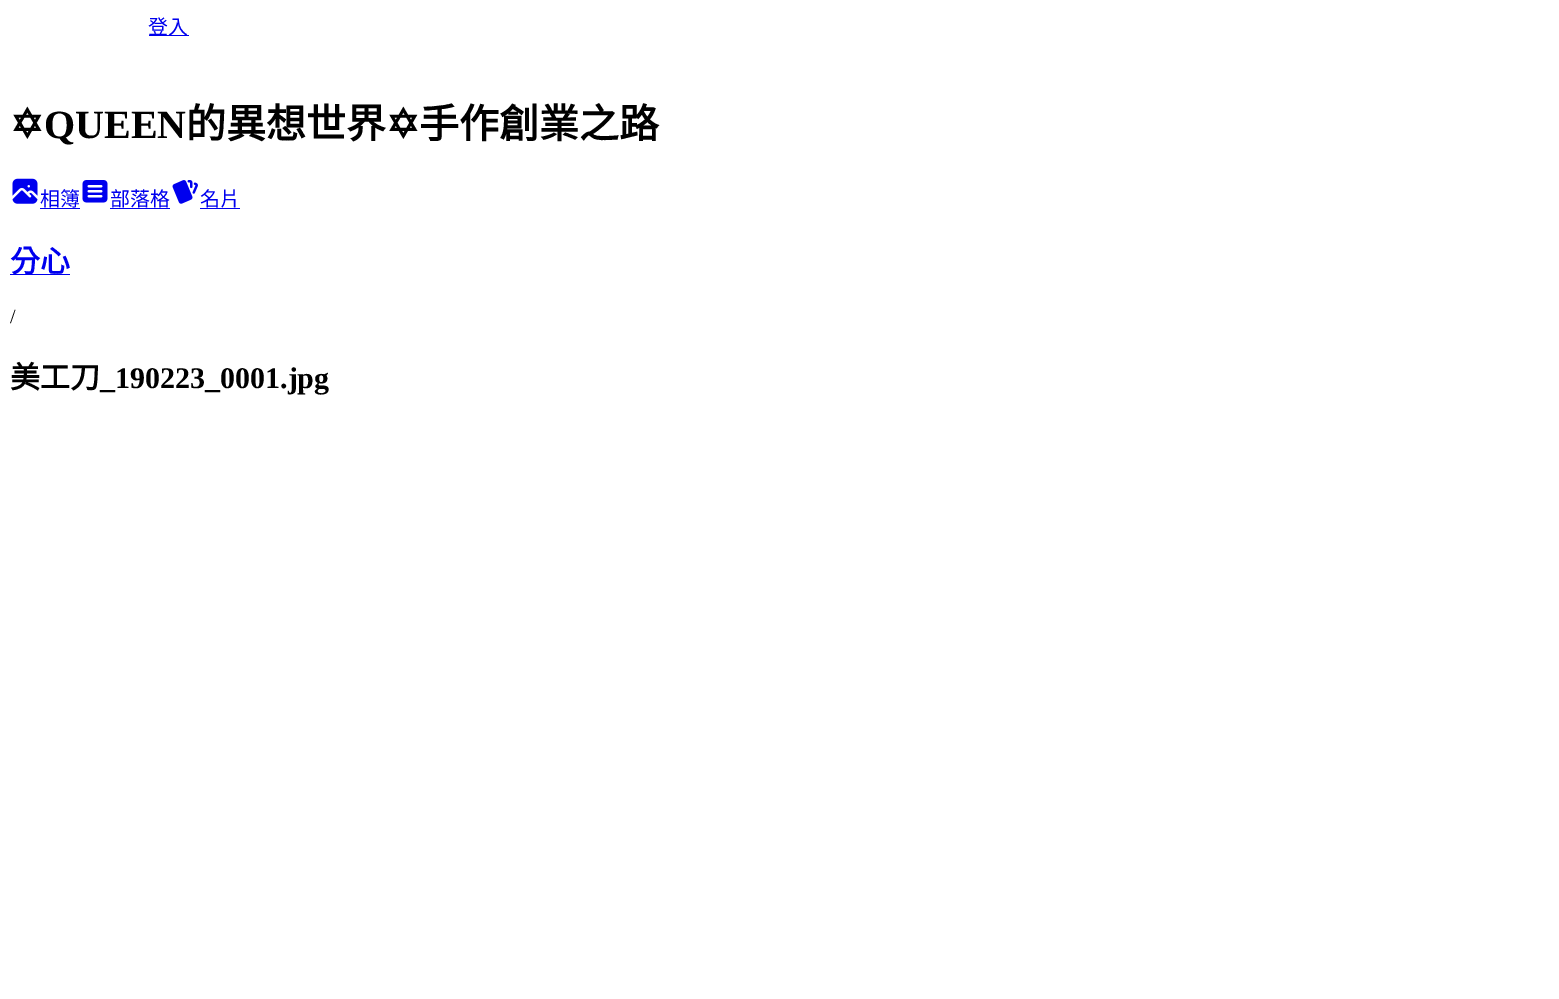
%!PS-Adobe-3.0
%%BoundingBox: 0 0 1559 999
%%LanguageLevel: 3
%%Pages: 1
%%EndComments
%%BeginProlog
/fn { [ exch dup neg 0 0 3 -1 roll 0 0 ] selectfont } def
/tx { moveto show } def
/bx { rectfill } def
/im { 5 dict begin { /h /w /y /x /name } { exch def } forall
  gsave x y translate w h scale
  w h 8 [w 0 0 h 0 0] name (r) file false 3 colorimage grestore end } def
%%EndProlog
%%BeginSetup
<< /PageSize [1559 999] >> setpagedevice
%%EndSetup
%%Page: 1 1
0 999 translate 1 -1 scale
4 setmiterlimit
1 setgray
0 0 1559 999 bx
0 0 0.933 setrgbcolor
149 35 40 1 bx
/NotoSansCJKTC-Regular 20 fn
(登入) 148 34 tx
/DejaVuSans-Bold 40 fn
0 setgray
(✡) 10 138 tx
/LiberationSerif-Bold 40 fn
(QUEEN) 44 138 tx
/NotoSansCJKTC-Bold 40 fn
(的異想世界) 186 138 tx
/DejaVuSans-Bold 40 fn
(✡) 386 138 tx
/NotoSansCJKTC-Bold 40 fn
(手作創業之路) 419 138 tx
(image0.raw) 12 178 26 26 im
/NotoSansCJKTC-Regular 20 fn
0 0 0.933 setrgbcolor
(相簿) 40 206 tx
40 208 40 1 bx
(image1.raw) 82 180 26 23 im
(部落格) 110 206 tx
110 208 60 1 bx
(image2.raw) 172 180 26 24 im
(名片) 200 206 tx
200 208 40 1 bx
10 274 60 1 bx
/NotoSansCJKTC-Bold 30 fn
(分心) 10 272 tx
/LiberationSerif-Regular 20 fn
0 setgray
(/) 10 323 tx
/NotoSansCJKTC-Bold 30 fn
(美工刀) 10 388 tx
/LiberationSerif-Bold 30 fn
(_190223_0001.jpg) 100 388 tx
showpage
%%EOF
